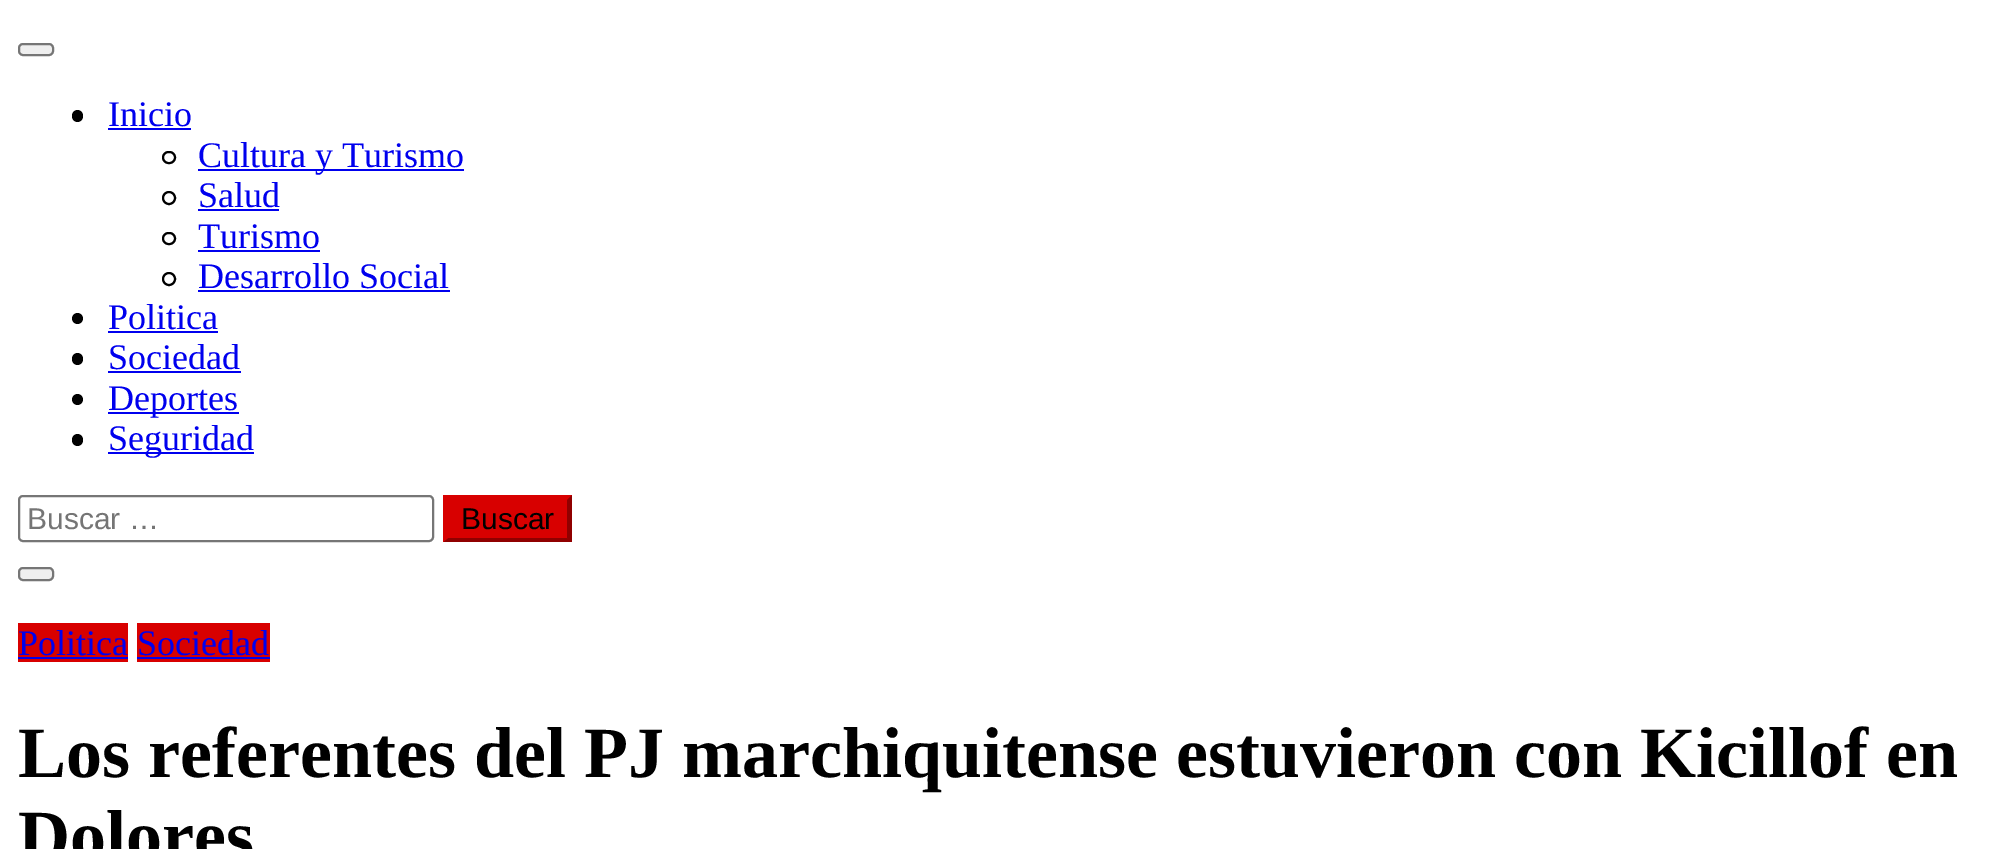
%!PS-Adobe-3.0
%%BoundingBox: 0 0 2003 849
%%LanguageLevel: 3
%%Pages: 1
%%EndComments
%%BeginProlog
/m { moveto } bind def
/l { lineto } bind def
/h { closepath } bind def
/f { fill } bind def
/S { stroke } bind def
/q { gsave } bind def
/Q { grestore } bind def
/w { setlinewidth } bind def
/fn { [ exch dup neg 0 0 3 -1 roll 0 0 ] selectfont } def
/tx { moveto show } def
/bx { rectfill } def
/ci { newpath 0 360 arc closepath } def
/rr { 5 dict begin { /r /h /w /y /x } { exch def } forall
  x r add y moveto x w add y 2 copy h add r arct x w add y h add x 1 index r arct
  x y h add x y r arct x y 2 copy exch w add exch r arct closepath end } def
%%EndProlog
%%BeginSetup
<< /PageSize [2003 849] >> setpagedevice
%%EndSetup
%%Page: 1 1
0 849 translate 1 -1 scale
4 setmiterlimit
1 setgray
0 0 2003 849 bx
0.937 setgray
19 44 34 11 4 rr q f Q
0.463 setgray
2 w
S
0 setgray
72 110 11 12 5.5 rr f
/LiberationSerif-Regular 36 fn
0 0 0.933 setrgbcolor
(Inicio) 108 126 tx
108 128 83 2 bx
0 setgray
163 152 12 11 5.5 rr S
0 0 0.933 setrgbcolor
198 169 266 2 bx
(Cultura y Turismo) 198 167 tx
0 setgray
169 198 6 ci S
0 0 0.933 setrgbcolor
(Salud) 198 207 tx
198 209 81 2 bx
0 setgray
163 233 12 11 5.5 rr S
0 0 0.933 setrgbcolor
(Turismo) 198 248 tx
198 250 122 2 bx
0 setgray
169 279 6 ci S
0 0 0.933 setrgbcolor
(Desarrollo Social) 198 288 tx
198 290 252 2 bx
0 setgray
77.5 318.5 5.5 ci f
0 0 0.933 setrgbcolor
(Politica) 108 329 tx
108 331 110 2 bx
0 setgray
72 353 11 12 5.5 rr f
0 0 0.933 setrgbcolor
(Sociedad) 108 369 tx
108 371 133 2 bx
0 setgray
77.5 399.5 5.5 ci f
0 0 0.933 setrgbcolor
108 412 131 2 bx
(Deportes) 108 410 tx
0 setgray
72 434 11 12 5.5 rr f
0 0 0.933 setrgbcolor
108 452 146 2 bx
(Seguridad) 108 450 tx
0.463 setgray
19 496 414 45 4 rr S
/LiberationSans-Regular 30 fn
0.459 setgray
(Buscar …) 27 529 tx
0.847 0 0 setrgbcolor
443 495 129 47 bx
0.565 0 0 setrgbcolor
572 495 m 572 542 l 567 538 l 567 500 l h f
572 542 m 443 542 l 448 538 l 567 538 l h f
0.847 0 0 setrgbcolor
443 542 m 443 495 l 448 500 l 448 538 l h f
0 setgray
(Buscar) 461 529 tx
0.937 setgray
19 568 34 12 4 rr q f Q
0.463 setgray
S
0.847 0 0 setrgbcolor
18 623 110 39 bx
/LiberationSerif-Regular 36 fn
0 0 0.933 setrgbcolor
(Politica) 18 655 tx
18 657 110 2 bx
0.847 0 0 setrgbcolor
137 623 133 39 bx
0 0 0.933 setrgbcolor
(Sociedad) 137 655 tx
137 657 133 2 bx
/LiberationSerif-Bold 72 fn
0 setgray
(Los referentes del PJ marchiquitense estuvieron con Kicillof en) 18 777 tx
(Dolores) 18 860 tx
showpage
%%EOF
